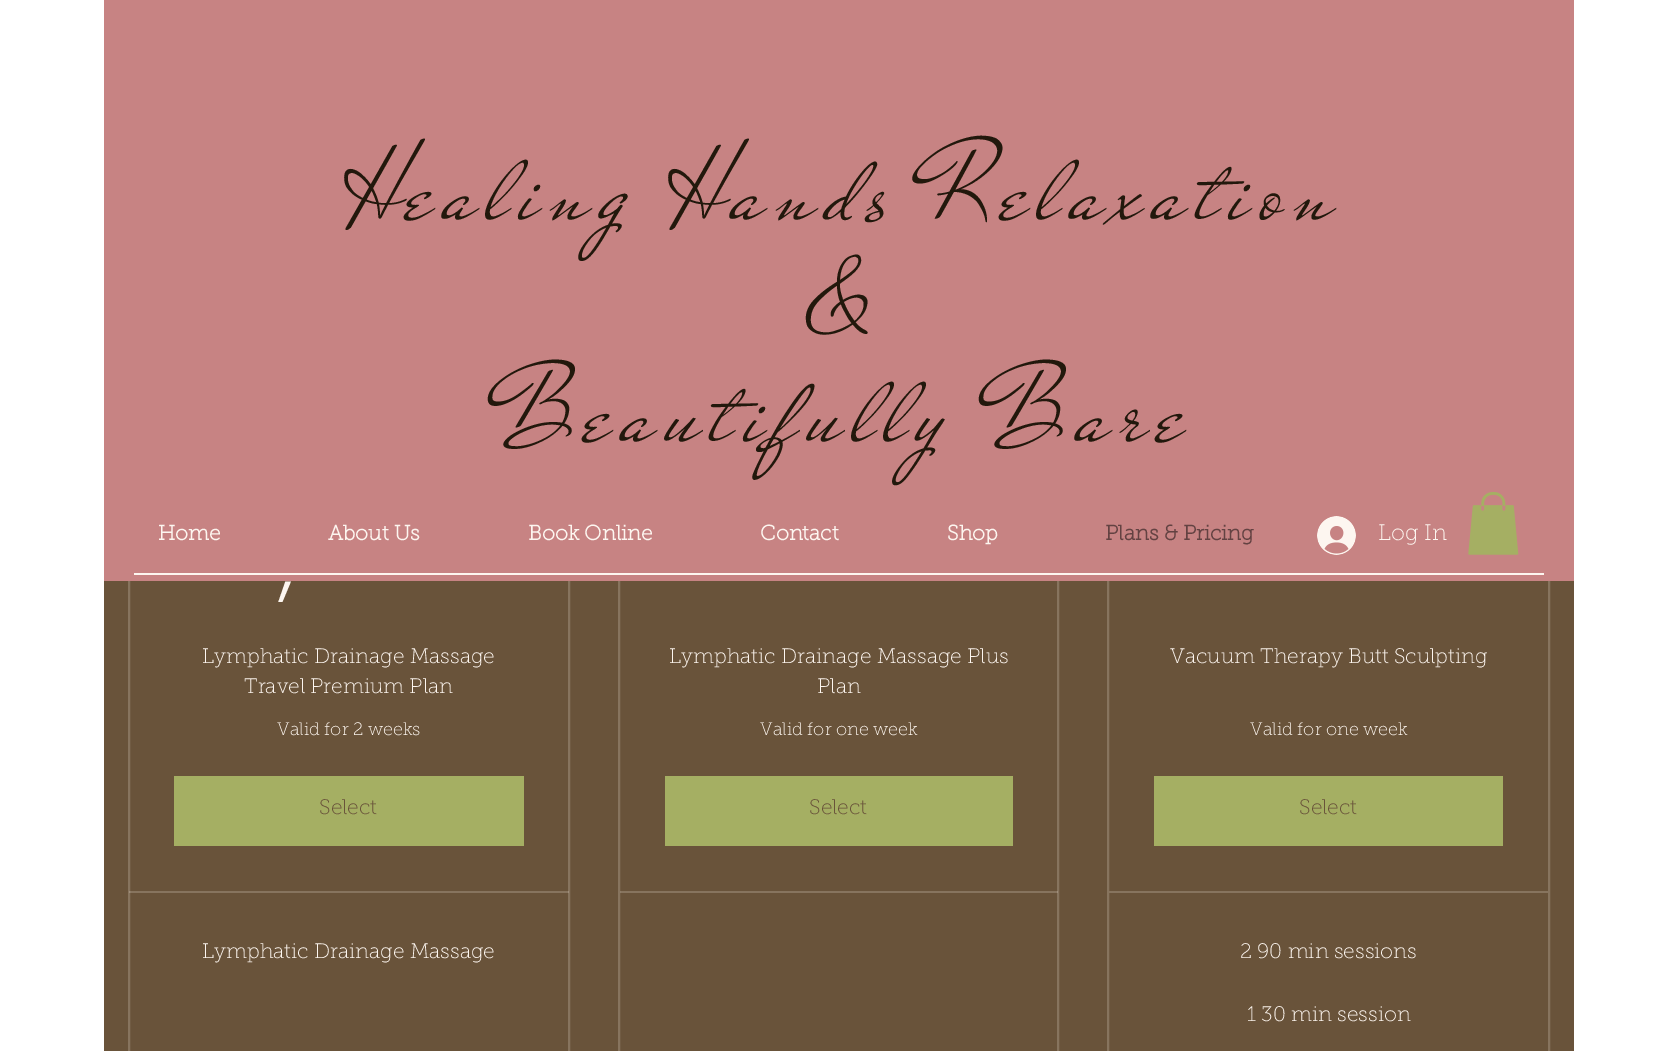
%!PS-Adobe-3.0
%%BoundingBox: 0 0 1677 1051
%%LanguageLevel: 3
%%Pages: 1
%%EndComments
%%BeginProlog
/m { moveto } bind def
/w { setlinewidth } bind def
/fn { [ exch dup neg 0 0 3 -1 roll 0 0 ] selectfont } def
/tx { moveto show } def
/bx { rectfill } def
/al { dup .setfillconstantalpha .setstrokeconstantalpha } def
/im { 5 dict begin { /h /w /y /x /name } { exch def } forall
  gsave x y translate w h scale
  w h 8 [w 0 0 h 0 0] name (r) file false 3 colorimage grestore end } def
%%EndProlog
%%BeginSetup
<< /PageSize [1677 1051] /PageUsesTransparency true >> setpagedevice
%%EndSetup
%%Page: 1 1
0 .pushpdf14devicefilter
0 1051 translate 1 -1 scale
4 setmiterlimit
1 setgray
0 0 1677 1051 bx
0.412 0.325 0.227 setrgbcolor
104 581 1470 470 bx
0.529 0.455 0.369 setrgbcolor
2 w
129 391 440 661 rectstroke
619 391 439 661 rectstroke
1108 391 441 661 rectstroke
0.78 0.514 0.514 setrgbcolor
104 0 1470 581 bx
/MrDeHaviland-Regular 109.5 fn
0.133 0.094 0.047 setrgbcolor
345 218 m 10.95 0 (Healing Hands Relaxation) ashow
809 329 m 10.95 0 (&) ashow
494 440 m 10.95 0 (Beautifully Bare) ashow
/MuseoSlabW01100-Bold 21 fn
0.992 0.965 0.941 setrgbcolor
(Home) 158 540 tx
(About Us) 328 540 tx
(Book Online) 528 540 tx
(Contact) 760 540 tx
(Shop) 947 540 tx
0.388 0.259 0.259 setrgbcolor
(Plans & Pricing) 1105 540 tx
(image0.raw) 1317 516 39 39 im
/MuseoSlabW01100-Thin 22.5 fn
0.992 0.965 0.941 setrgbcolor
(Log In) 1378 540 tx
(image1.raw) 1468 492 51 63 im
134 573 1410 2 bx
/MuseoSlabW01100-Thin 105 fn
(,) 275 588 tx
/MuseoSlabW01100-Thin 21 fn
(Lymphatic Drainage Massage) 202 663 tx
(Travel Premium Plan) 244 693 tx
/MuseoSlabW01100-Thin 18 fn
(Valid for 2 weeks) 277 735 tx
0.647 0.686 0.388 setrgbcolor
174 776 350 70 bx
/MuseoSlabW01100-Thin 21 fn
0.412 0.325 0.227 setrgbcolor
(Select) 319 814 tx
0.2 al
0.992 0.965 0.941 setrgbcolor
129 891 440 2 bx
1 al
(Lymphatic Drainage Massage) 202 958 tx
(Lymphatic Drainage Massage Plus) 669 663 tx
(Plan) 817 693 tx
/MuseoSlabW01100-Thin 18 fn
(Valid for one week) 760 735 tx
0.647 0.686 0.388 setrgbcolor
665 776 348 70 bx
/MuseoSlabW01100-Thin 21 fn
0.412 0.325 0.227 setrgbcolor
(Select) 809 814 tx
0.2 al
0.992 0.965 0.941 setrgbcolor
620 891 438 2 bx
1 al
(Vacuum Therapy Butt Sculpting) 1170 663 tx
/MuseoSlabW01100-Thin 18 fn
(Valid for one week) 1250 735 tx
0.647 0.686 0.388 setrgbcolor
1154 776 349 70 bx
/MuseoSlabW01100-Thin 21 fn
0.412 0.325 0.227 setrgbcolor
(Select) 1299 814 tx
0.529 0.455 0.369 setrgbcolor
1109 891 439 2 bx
0.992 0.965 0.941 setrgbcolor
(2 90 min sessions) 1240 958 tx
(1 30 min session) 1247 1021 tx
.poppdf14devicefilter showpage
%%EOF
